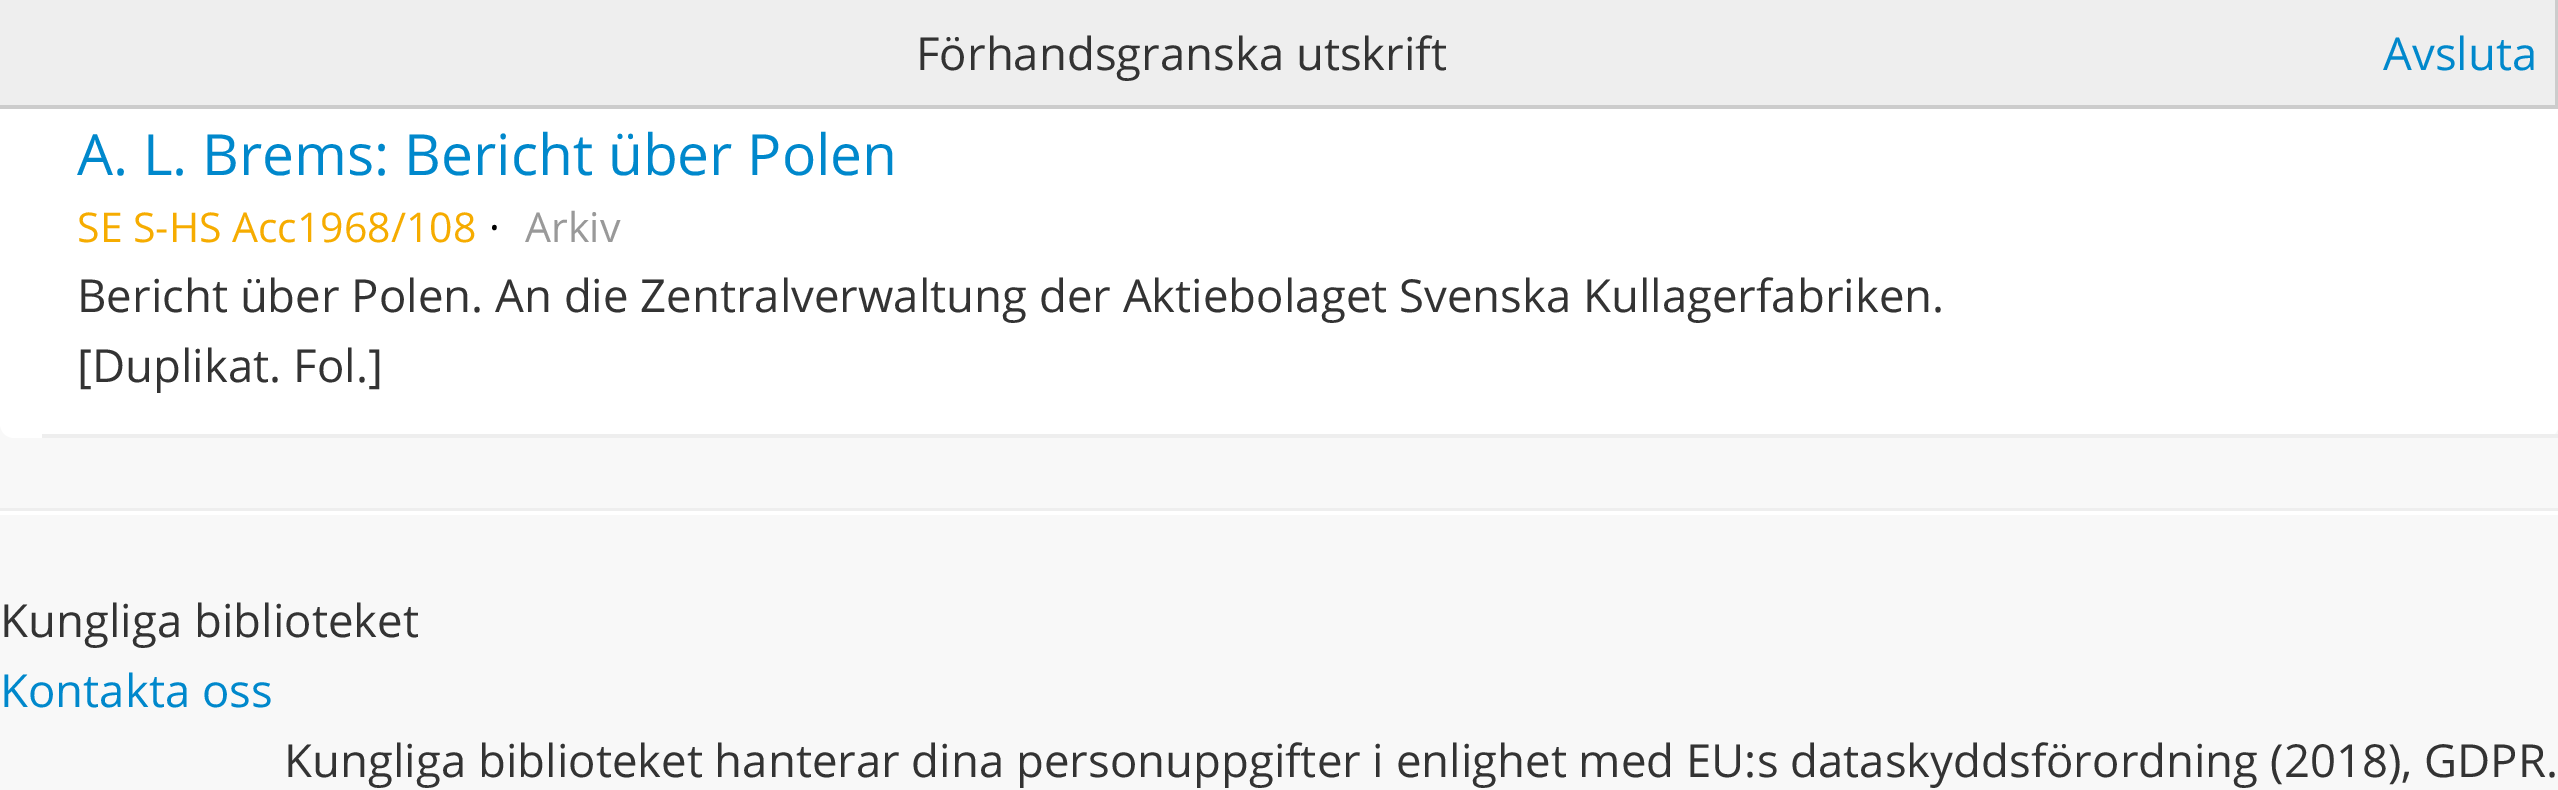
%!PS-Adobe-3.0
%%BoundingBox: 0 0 2558 790
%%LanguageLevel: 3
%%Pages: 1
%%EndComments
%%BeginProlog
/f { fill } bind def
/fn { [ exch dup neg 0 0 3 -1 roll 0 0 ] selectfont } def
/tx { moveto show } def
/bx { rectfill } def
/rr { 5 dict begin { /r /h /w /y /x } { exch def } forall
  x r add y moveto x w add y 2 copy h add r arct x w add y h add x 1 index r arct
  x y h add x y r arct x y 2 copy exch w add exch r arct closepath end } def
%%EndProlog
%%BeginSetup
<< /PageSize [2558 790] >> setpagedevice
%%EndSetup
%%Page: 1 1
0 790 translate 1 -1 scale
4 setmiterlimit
0.973 setgray
0 0 2558 790 bx
1 setgray
0 84 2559 354 14 rr f
0.933 setgray
0 0 2555 105 bx
0.8 setgray
2555 0 3 109 bx
0 105 2558 4 bx
/OpenSans-Regular 45.5 fn
0.2 setgray
(Förhandsgranska utskrift) 916 70 tx
0 0.533 0.8 setrgbcolor
(Avsluta) 2383 70 tx
0.933 setgray
42 434 2516 4 bx
/OpenSans-Regular 56.9 fn
0 0.533 0.8 setrgbcolor
(A. L. Brems: Bericht über Polen) 77 175 tx
/OpenSans-Regular 41 fn
0.965 0.675 0 setrgbcolor
(SE S-HS Acc1968/108) 77 242 tx
0 setgray
(·) 489 242 tx
0.6 setgray
(Arkiv) 525 242 tx
/OpenSans-Regular 45.5 fn
0.2 setgray
(Bericht über Polen. An die Zentralverwaltung der Aktiebolaget Svenska Kullagerfabriken.) 77 312 tx
([Duplikat. Fol.]) 77 382 tx
0.933 setgray
0 508 2558 3 bx
1 setgray
0 511 2558 4 bx
0.2 setgray
(Kungliga biblioteket) 0 637 tx
0 0.533 0.8 setrgbcolor
(Kontakta oss) 0 707 tx
0.2 setgray
(Kungliga biblioteket hanterar dina personuppgifter i enlighet med EU:s dataskyddsförordning \(2018\), GDPR.) 284 777 tx
showpage
%%EOF
